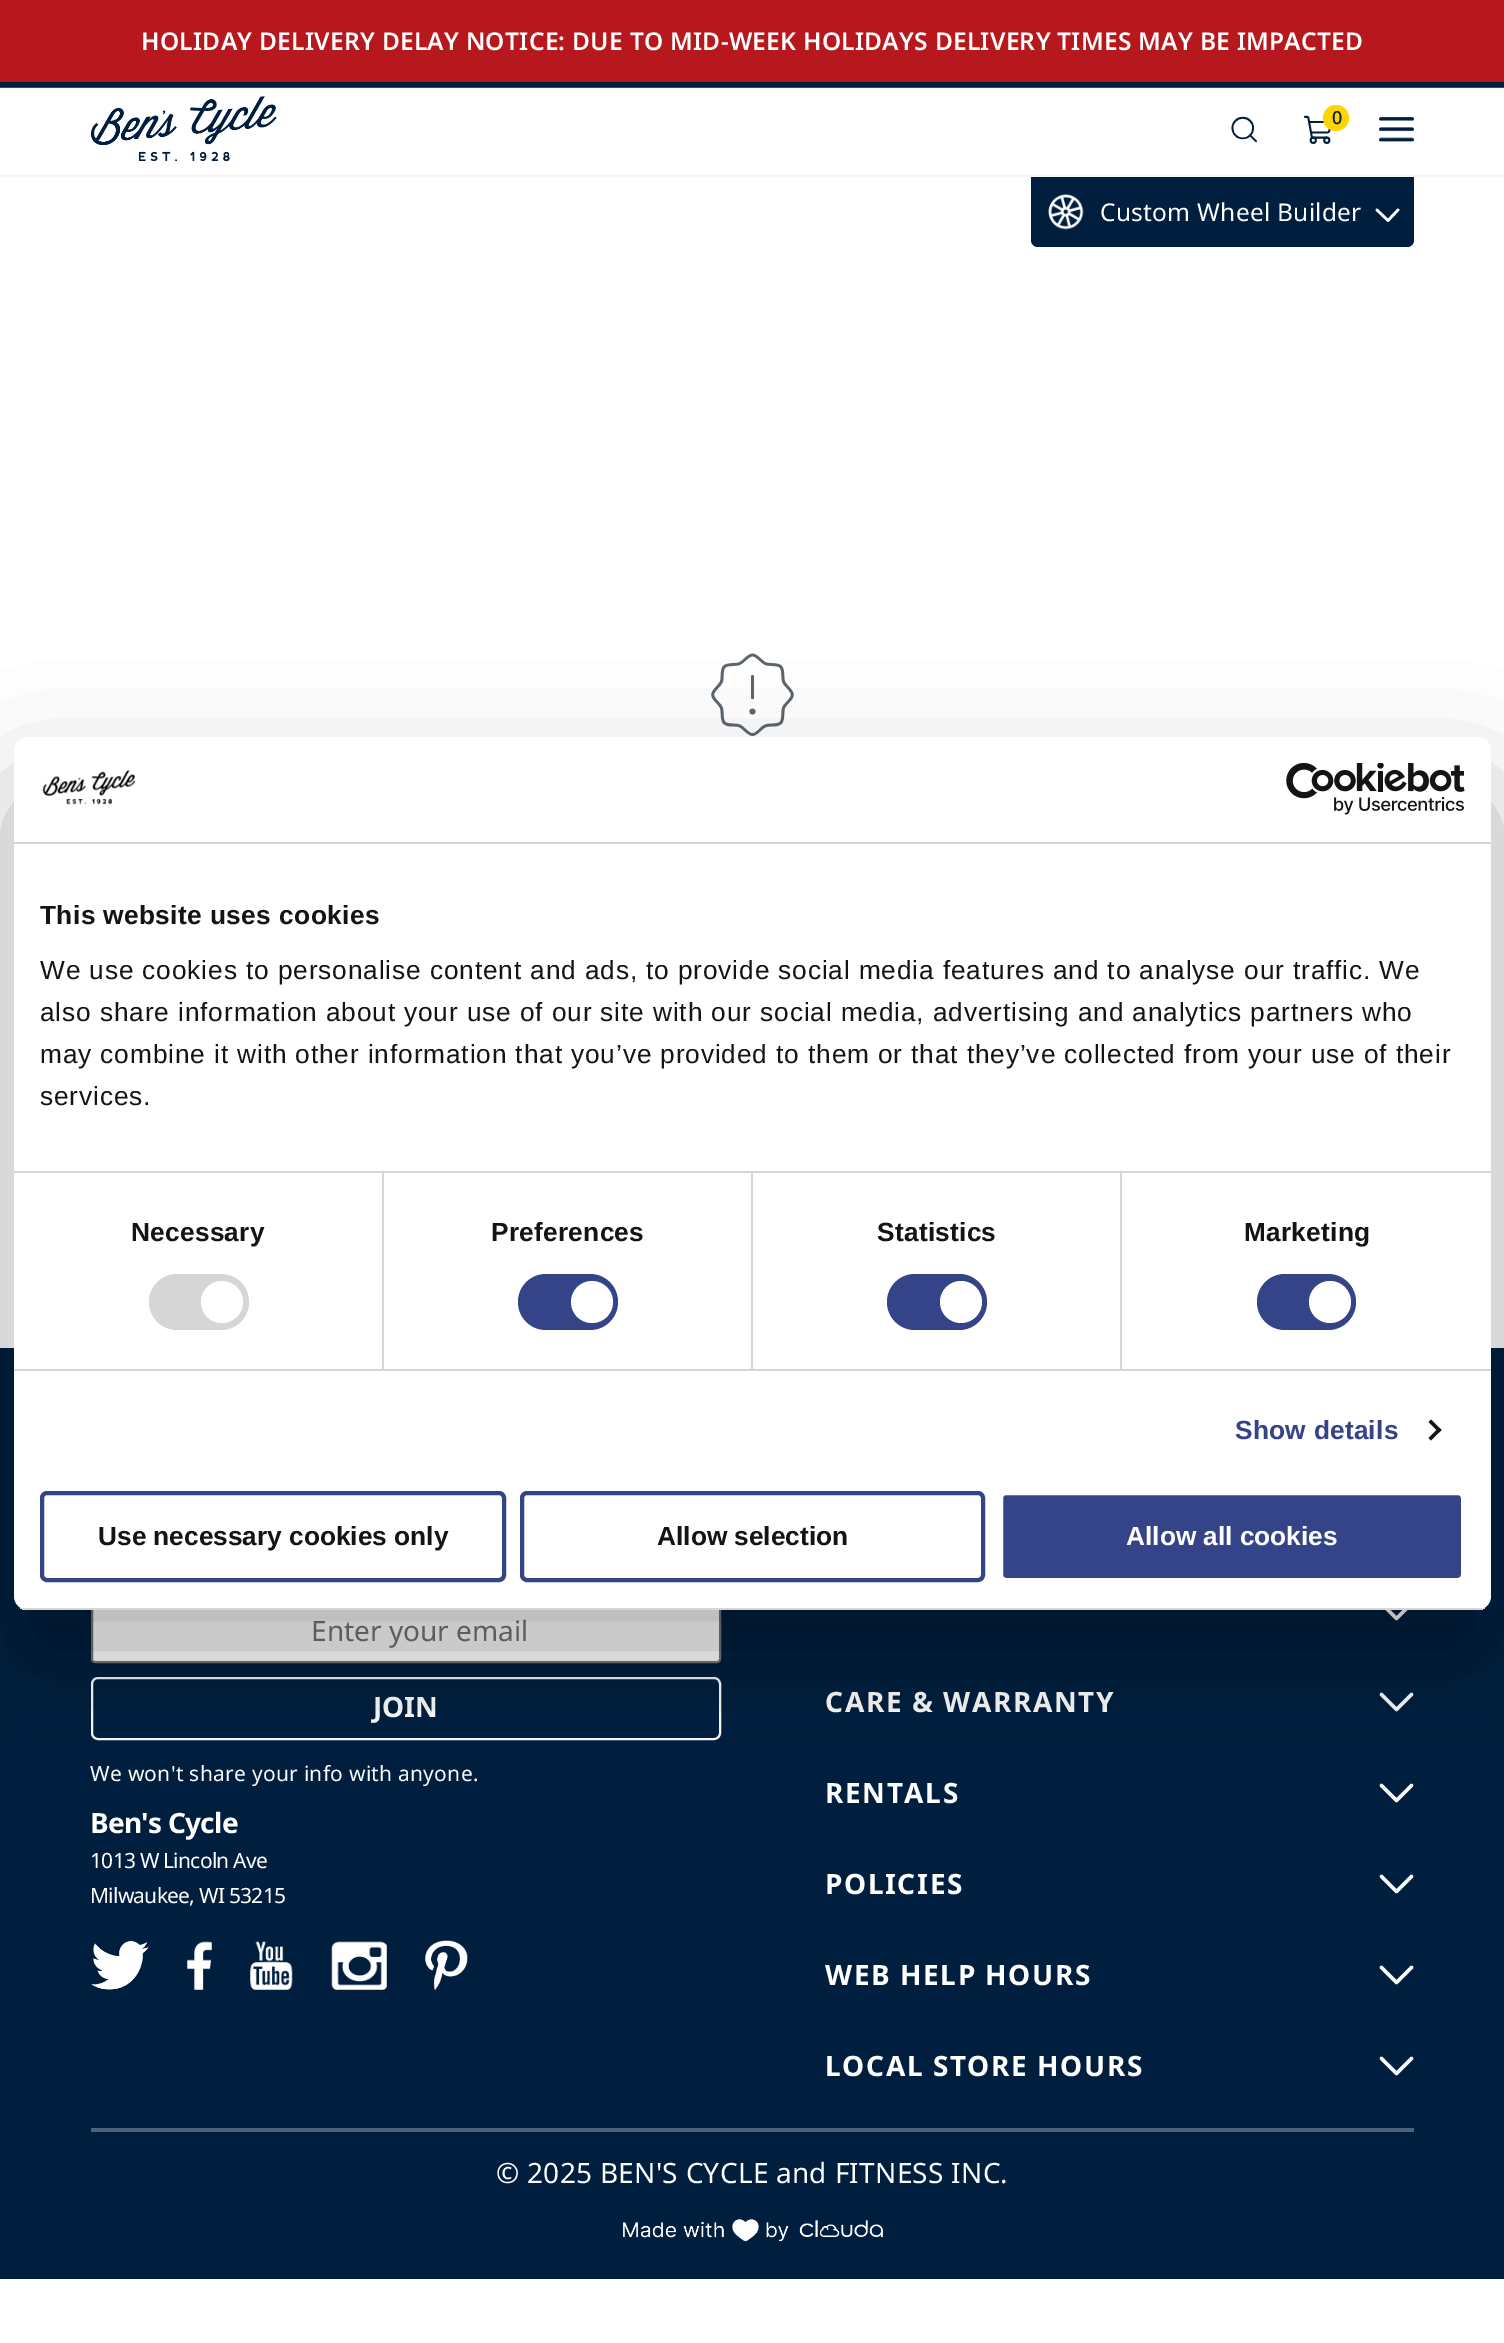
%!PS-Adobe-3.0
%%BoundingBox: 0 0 1504 2343
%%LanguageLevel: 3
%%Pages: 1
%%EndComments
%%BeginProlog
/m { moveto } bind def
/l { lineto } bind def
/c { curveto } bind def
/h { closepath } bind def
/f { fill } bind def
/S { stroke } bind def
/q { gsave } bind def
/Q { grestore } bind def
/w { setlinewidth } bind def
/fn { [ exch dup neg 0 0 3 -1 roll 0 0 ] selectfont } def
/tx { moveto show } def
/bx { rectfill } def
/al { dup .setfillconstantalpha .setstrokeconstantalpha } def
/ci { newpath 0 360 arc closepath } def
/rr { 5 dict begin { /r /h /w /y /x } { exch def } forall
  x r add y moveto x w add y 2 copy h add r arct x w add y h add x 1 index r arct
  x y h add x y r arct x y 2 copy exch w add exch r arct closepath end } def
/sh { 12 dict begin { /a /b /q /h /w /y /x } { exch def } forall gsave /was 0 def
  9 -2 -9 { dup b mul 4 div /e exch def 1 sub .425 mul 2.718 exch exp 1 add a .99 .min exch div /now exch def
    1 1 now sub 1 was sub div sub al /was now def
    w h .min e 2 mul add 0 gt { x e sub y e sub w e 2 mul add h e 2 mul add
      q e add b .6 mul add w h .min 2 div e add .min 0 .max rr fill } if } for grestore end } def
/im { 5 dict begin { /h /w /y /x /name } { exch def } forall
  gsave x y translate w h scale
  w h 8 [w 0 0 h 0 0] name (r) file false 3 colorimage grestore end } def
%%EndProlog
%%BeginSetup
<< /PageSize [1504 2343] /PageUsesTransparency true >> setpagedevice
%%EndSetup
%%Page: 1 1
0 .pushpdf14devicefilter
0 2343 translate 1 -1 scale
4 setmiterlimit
1 setgray
0 0 1504 2343 bx
0 0.122 0.247 setrgbcolor
1031 177 m 1414 177 l 1414 240 l 1414 244 1411 247 1407 247 c 1038 247 l 1034 247 1031 244 1031 240 c h f
q
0 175 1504 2 rectclip
0 setgray
0 88 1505 87 0 2 0.12 sh
Q
0.718 0.094 0.118 setrgbcolor
0 0 1504 88 bx
0 0.122 0.247 setrgbcolor
0 82 1504 5 bx
/NotoSans-SemiBold 24.5 fn
1 setgray
141 50 m 0.28 0 (HOLIDAY DELIVERY DELAY NOTICE: DUE TO MID-WEEK HOLIDAYS DELIVERY TIMES MAY BE IMPACTED) ashow
(image0.raw) 91 96 186 65 im
(image1.raw) 1231 116 26 27 im
(image2.raw) 1304 115 27 29 im
1 0.831 0 setrgbcolor
1336 118 13 ci f
/NotoSans-Medium 18 fn
0 0.122 0.247 setrgbcolor
(0) 1332 124 tx
(image3.raw) 1379 117 35 25 im
(image4.raw) 1048 194 36 36 im
/NotoSans-Regular 24.5 fn
1 setgray
1100 221 m 0.28 0 (Custom Wheel Builder) ashow
2.6 w
1 setlinecap
1 setlinejoin
1398 210 m 1388 220.5 l 1377 210 l S
(image5.raw) 711 653 83 83 im
0 0.122 0.247 setrgbcolor
0 1348 1504 931 bx
1 setgray
92 1601 628 61 3 rr q f Q
0.463 setgray
2 w
0 setlinecap
0 setlinejoin
S
/NotoSans-Regular 28 fn
0.459 setgray
(Enter your email) 311 1641 tx
1 setgray
92 1678 628 61 6 rr S
/NotoSans-Bold 28 fn
(JOIN) 373 1717 tx
/NotoSans-Regular 21 fn
90 1781 m 0.28 0 (We won't share your info with anyone.) ashow
/NotoSans-Bold 28 fn
90 1833 m -0.75 0 (Ben's Cycle) ashow
/NotoSans-Regular 21 fn
90 1868 m -0.75 0 (1013 W Lincoln Ave) ashow
90 1903 m -0.75 0 (Milwaukee, WI 53215) ashow
(image6.raw) 91 1940 58 50 im
(image7.raw) 187 1941 25 49 im
(image8.raw) 250 1941 43 49 im
(image9.raw) 331 1941 56 49 im
(image10.raw) 425 1940 43 50 im
3.5 w
1 setlinecap
1 setlinejoin
1411.5 1603.5 m 1396.5 1618.5 l 1381.5 1603.5 l S
/NotoSans-Bold 28 fn
825 1712 m 1.6 0 (CARE & WARRANTY) ashow
1411.5 1694.5 m 1396.5 1709.5 l 1381.5 1694.5 l S
825 1803 m 1.6 0 (RENTALS) ashow
1411.5 1785.5 m 1396.5 1800.5 l 1381.5 1785.5 l S
825 1894 m 1.6 0 (POLICIES) ashow
1411.5 1876.5 m 1396.5 1891.5 l 1381.5 1876.5 l S
825 1985 m 1.6 0 (WEB HELP HOURS) ashow
1411.5 1967.5 m 1396.5 1982.5 l 1381.5 1967.5 l S
825 2076 m 1.6 0 (LOCAL STORE HOURS) ashow
1411.5 2058.5 m 1396.5 2073.5 l 1381.5 2058.5 l S
0.302 0.384 0.475 setrgbcolor
91 2128 1323 4 bx
/NotoSans-Regular 28 fn
1 setgray
496 2183 m 0.28 0 (© 2025 BEN'S CYCLE and FITNESS INC.) ashow
(image11.raw) 623 2219 260 23 im
0 setgray
14 793 1477 873 14 59.5 0.3 sh
1 setgray
14 737 1477 873 14 rr f
0.839 setgray
14 842 1477 2 bx
(image12.raw) 42 770 94 35 im
(image13.raw) 1286 763 179 52 im
14 1171 1477 2 bx
/LiberationSans-Bold 26.25 fn
0.078 setgray
40 924 m 0.4 0 (This website uses cookies) ashow
/LiberationSans-Regular 26.25 fn
40 979 m 0.88 0 (We use cookies to personalise content and ads, to provide social media features and to analyse our traffic. We) ashow
40 1021 m 0.88 0 (also share information about your use of our site with our social media, advertising and analytics partners who) ashow
40 1063 m 0.88 0 (may combine it with other information that you’ve provided to them or that they’ve collected from your use of their) ashow
40 1105 m 0.88 0 (services.) ashow
0.839 setgray
14 1369 1477 2 bx
382 1173 2 196 bx
/LiberationSans-Bold 26.25 fn
0.078 setgray
131 1241 m 0.25 0 (Necessary) ashow
0.839 setgray
149 1274 100 56 28 rr f
1 setgray
222 1302 21 ci f
0.839 setgray
751 1173 2 196 bx
0.078 setgray
491 1241 m 0.25 0 (Preferences) ashow
0.208 0.267 0.537 setrgbcolor
518 1274 100 56 28 rr f
1 setgray
592 1302 21 ci f
0.839 setgray
1120 1173 2 196 bx
0.078 setgray
877 1241 m 0.25 0 (Statistics) ashow
0.208 0.267 0.537 setrgbcolor
887 1274 100 56 28 rr f
1 setgray
961 1302 21 ci f
0.078 setgray
1244 1241 m 0.25 0 (Marketing) ashow
0.208 0.267 0.537 setrgbcolor
1257 1274 99 56 28 rr f
1 setgray
1330 1302 21 ci f
0.208 0.267 0.537 setrgbcolor
1235 1439 m 0.25 0 (Show details) ashow
0.078 setgray
1431 1419.5 m 1441.5 1430 l 1439 1432.5 l 1428.5 1422 l h f
1439 1427.5 m 1441.5 1430 l 1431 1440.5 l 1428.5 1438 l h f
q
14 737 1477 873 14 rr clip newpath
0.839 setgray
14 1608 1477 2 bx
Q
0.208 0.267 0.537 setrgbcolor
4 w
0 setlinecap
0 setlinejoin
42 1493 462 87 5 rr S
0.078 setgray
(Use necessary cookies only) 98 1545 tx
0.208 0.267 0.537 setrgbcolor
522 1493 461 87 5 rr S
0.078 setgray
(Allow selection) 657 1545 tx
0.208 0.267 0.537 setrgbcolor
1001 1493 462 87 5 rr q f Q
1 setgray
S
(Allow all cookies) 1126 1545 tx
.poppdf14devicefilter showpage
%%EOF
